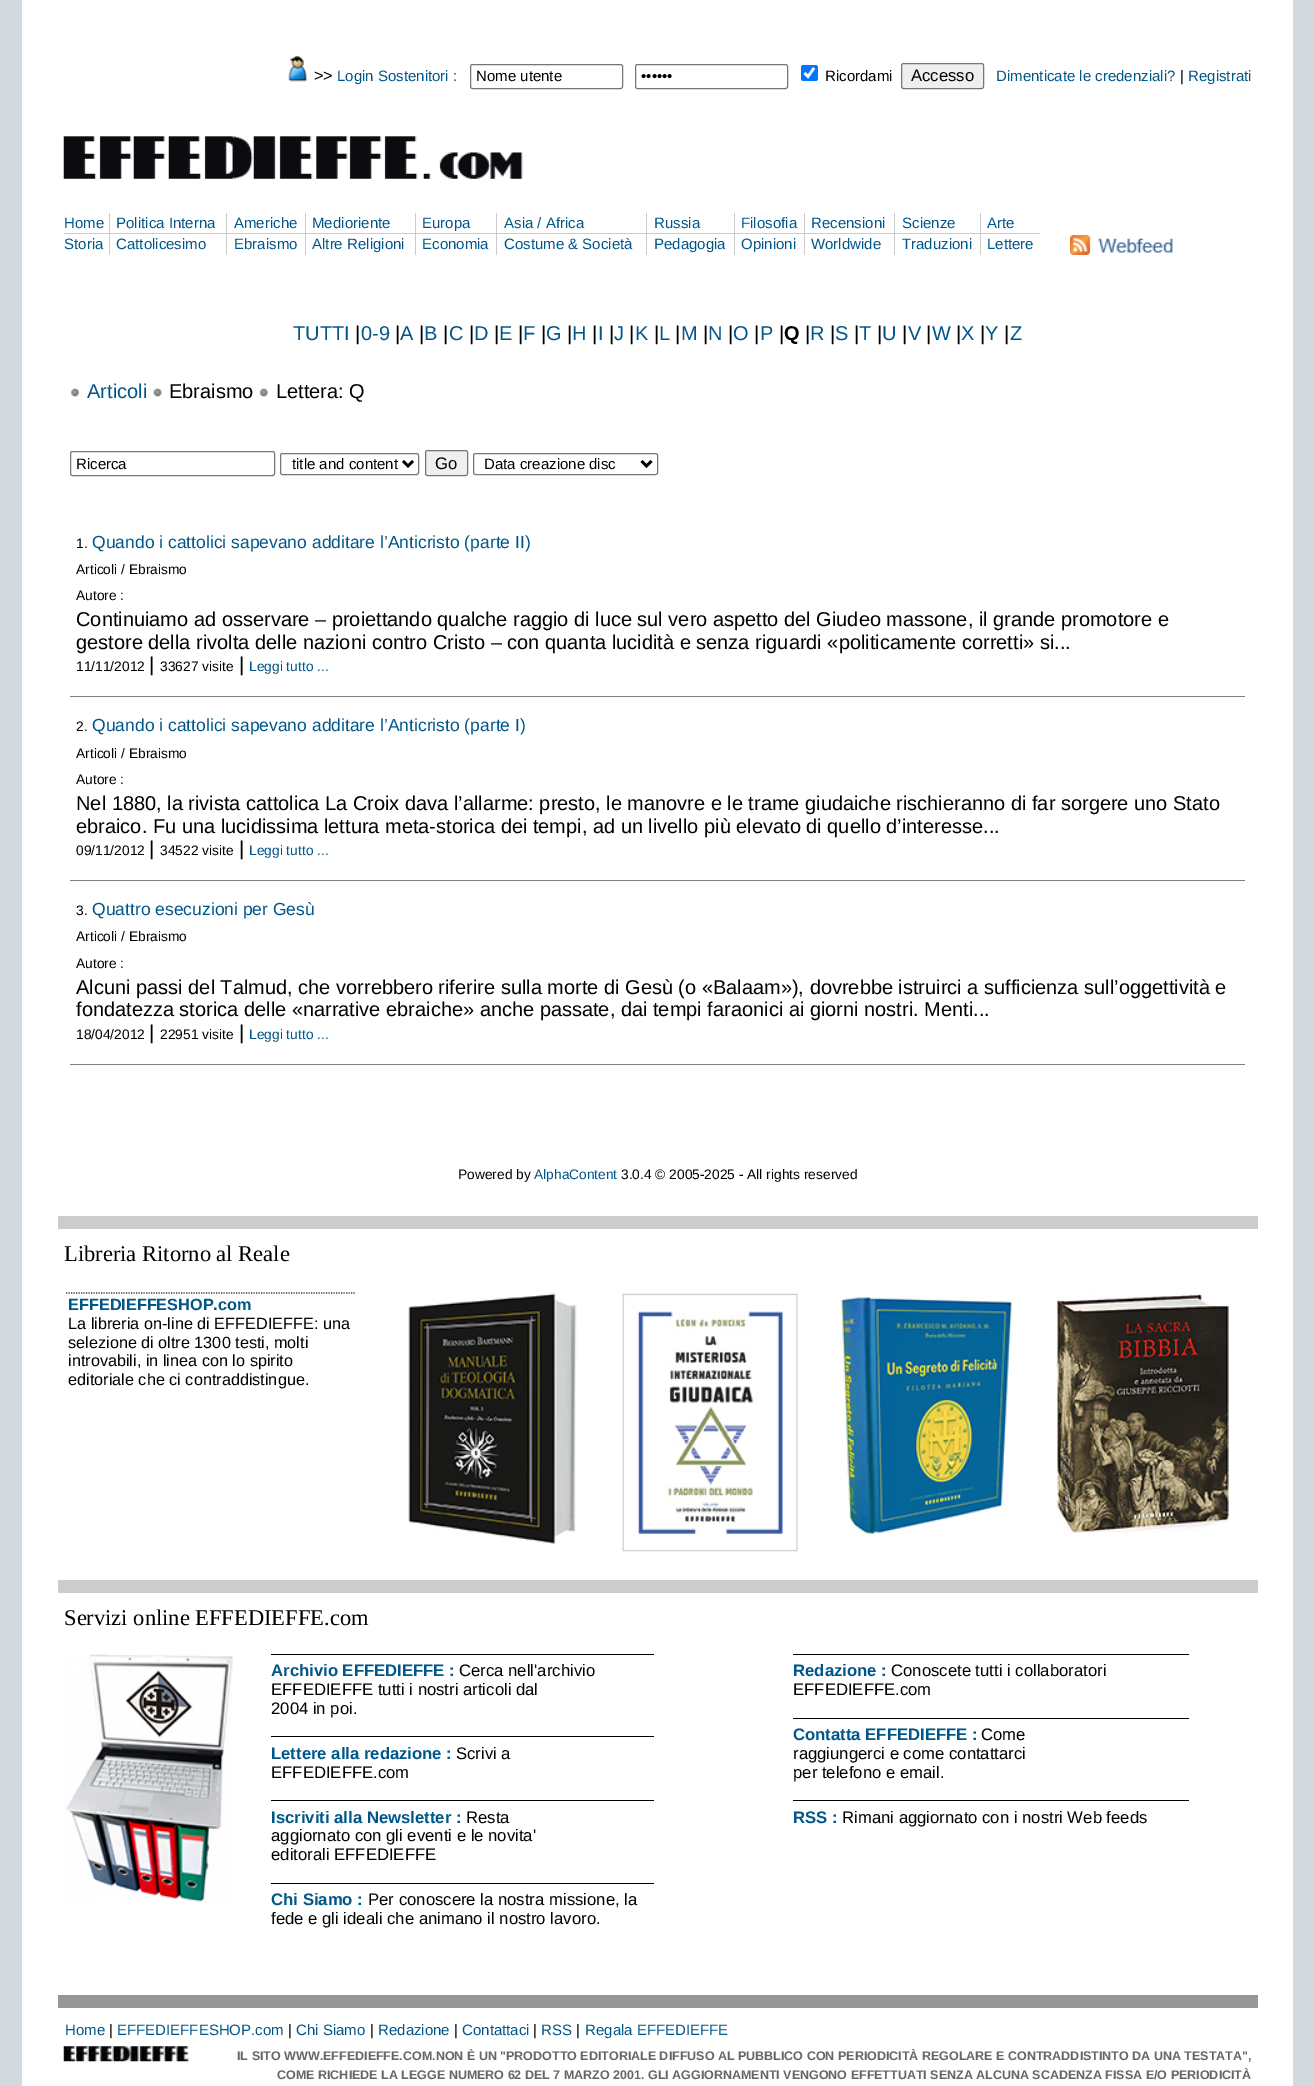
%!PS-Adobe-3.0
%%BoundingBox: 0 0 1314 2086
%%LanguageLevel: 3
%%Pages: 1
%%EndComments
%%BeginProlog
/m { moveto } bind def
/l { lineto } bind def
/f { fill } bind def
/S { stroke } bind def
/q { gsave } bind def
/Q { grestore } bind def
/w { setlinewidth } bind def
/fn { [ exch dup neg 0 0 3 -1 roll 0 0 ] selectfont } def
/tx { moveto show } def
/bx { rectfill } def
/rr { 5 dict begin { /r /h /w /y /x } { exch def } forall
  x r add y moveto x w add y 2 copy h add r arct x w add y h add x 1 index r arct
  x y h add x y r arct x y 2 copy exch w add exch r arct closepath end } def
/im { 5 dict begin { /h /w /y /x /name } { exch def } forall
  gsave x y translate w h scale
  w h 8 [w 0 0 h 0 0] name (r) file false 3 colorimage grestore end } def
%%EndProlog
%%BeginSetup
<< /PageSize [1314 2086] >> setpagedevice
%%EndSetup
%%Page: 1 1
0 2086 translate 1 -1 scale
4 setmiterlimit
0.831 0.851 0.867 setrgbcolor
0 0 1314 2086 bx
1 setgray
22 0 1271 2086 bx
(image0.raw) 288 56 20 26 im
/LiberationSans-Regular 16.25 fn
0 setgray
(>>) 314 81 tx
/LiberationSans-Regular 15 fn
0 0.337 0.537 setrgbcolor
(Login Sostenitori :) 337 81 tx
0.463 setgray
470.5 64.5 152 24 2 rr S
0 setgray
(Nome utente) 476 81 tx
0.463 setgray
635.5 64.5 152 24 2 rr S
0 setgray
(••••••) 641 81 tx
0 0.459 1 setrgbcolor
801 65 17 16 2.5 rr f
1 setgray
2.6 w
804.5 73 m 808 76.5 l 814 68 l S
0 setgray
(Ricordami) 825 81 tx
0.937 setgray
901.5 63.5 82 25 2 rr q f Q
0.463 setgray
1 w
S
/LiberationSans-Regular 16.7 fn
0 setgray
(Accesso) 911 81 tx
/LiberationSans-Regular 15 fn
0 0.337 0.537 setrgbcolor
(Dimenticate le credenziali?) 996 81 tx
0 setgray
(|) 1180 81 tx
0 0.337 0.537 setrgbcolor
(Registrati) 1188 81 tx
(image1.raw) 63 136 460 43 im
0.8 setgray
980 233 1 22 bx
980 233 60 1 bx
980 213 1 21 bx
894 233 1 22 bx
894 233 87 1 bx
894 213 1 21 bx
804 233 1 22 bx
804 233 91 1 bx
804 213 1 21 bx
734 233 1 22 bx
734 233 71 1 bx
734 213 1 21 bx
646 233 1 22 bx
646 233 89 1 bx
646 213 1 21 bx
496 233 1 22 bx
496 233 152 1 bx
496 213 1 21 bx
415 233 1 22 bx
415 233 83 1 bx
415 213 1 21 bx
305 233 1 22 bx
305 233 111 1 bx
305 213 1 21 bx
226 233 1 22 bx
226 233 80 1 bx
226 213 1 21 bx
109 233 1 22 bx
109 233 119 1 bx
109 213 1 21 bx
64 233 46 1 bx
0 0.337 0.537 setrgbcolor
(Home) 64 228 tx
(Politica Interna) 116 228 tx
(Americhe) 234 228 tx
(Medioriente) 312 228 tx
(Europa) 422 228 tx
(Asia / Africa) 504 228 tx
(Russia) 654 228 tx
(Filosofia) 741 228 tx
(Recensioni) 811 228 tx
(Scienze) 902 228 tx
(Arte) 987 228 tx
(Storia) 64 249 tx
(Cattolicesimo) 116 249 tx
(Ebraismo) 234 249 tx
(Altre Religioni) 312 249 tx
(Economia) 422 249 tx
(Costume & Società) 504 249 tx
(Pedagogia) 654 249 tx
(Opinioni) 741 249 tx
(Worldwide) 811 249 tx
(Traduzioni) 902 249 tx
(Lettere) 987 249 tx
(image2.raw) 1070 234 103 21 im
/LiberationSans-Regular 20 fn
(TUTTI) 293 340 tx
0 setgray
(|) 355 340 tx
0 0.337 0.537 setrgbcolor
(0-9) 361 340 tx
0 setgray
(|) 395 340 tx
0 0.337 0.537 setrgbcolor
(A) 400 340 tx
0 setgray
(|) 419 340 tx
0 0.337 0.537 setrgbcolor
(B) 424 340 tx
0 setgray
(|) 443 340 tx
0 0.337 0.537 setrgbcolor
(C) 449 340 tx
0 setgray
(|) 469 340 tx
0 0.337 0.537 setrgbcolor
(D) 474 340 tx
0 setgray
(|) 494 340 tx
0 0.337 0.537 setrgbcolor
(E) 499 340 tx
0 setgray
(|) 518 340 tx
0 0.337 0.537 setrgbcolor
(F) 523 340 tx
0 setgray
(|) 541 340 tx
0 0.337 0.537 setrgbcolor
(G) 546 340 tx
0 setgray
(|) 567 340 tx
0 0.337 0.537 setrgbcolor
(H) 572 340 tx
0 setgray
(|) 592 340 tx
0 0.337 0.537 setrgbcolor
(I) 598 340 tx
0 setgray
(|) 609 340 tx
0 0.337 0.537 setrgbcolor
(J) 614 340 tx
0 setgray
(|) 629 340 tx
0 0.337 0.537 setrgbcolor
(K) 635 340 tx
0 setgray
(|) 654 340 tx
0 0.337 0.537 setrgbcolor
(L) 659 340 tx
0 setgray
(|) 675 340 tx
0 0.337 0.537 setrgbcolor
(M) 681 340 tx
0 setgray
(|) 703 340 tx
0 0.337 0.537 setrgbcolor
(N) 708 340 tx
0 setgray
(|) 728 340 tx
0 0.337 0.537 setrgbcolor
(O) 733 340 tx
0 setgray
(|) 754 340 tx
0 0.337 0.537 setrgbcolor
(P) 760 340 tx
0 setgray
(|) 779 340 tx
/LiberationSans-Bold 20 fn
(Q) 784 340 tx
/LiberationSans-Regular 20 fn
(|) 805 340 tx
0 0.337 0.537 setrgbcolor
(R) 810 340 tx
0 setgray
(|) 830 340 tx
0 0.337 0.537 setrgbcolor
(S) 835 340 tx
0 setgray
(|) 854 340 tx
0 0.337 0.537 setrgbcolor
(T) 859 340 tx
0 setgray
(|) 877 340 tx
0 0.337 0.537 setrgbcolor
(U) 882 340 tx
0 setgray
(|) 902 340 tx
0 0.337 0.537 setrgbcolor
(V) 908 340 tx
0 setgray
(|) 926 340 tx
0 0.337 0.537 setrgbcolor
(W) 932 340 tx
0 setgray
(|) 956 340 tx
0 0.337 0.537 setrgbcolor
(X) 961 340 tx
0 setgray
(|) 980 340 tx
0 0.337 0.537 setrgbcolor
(Y) 985 340 tx
0 setgray
(|) 1004 340 tx
0 0.337 0.537 setrgbcolor
(Z) 1010 340 tx
(image3.raw) 71 388 8 9 im
(Articoli) 87 398 tx
(image4.raw) 153 388 9 9 im
0 setgray
(Ebraismo) 169 398 tx
(image5.raw) 259 388 9 9 im
(Lettera: Q) 276 398 tx
0.463 setgray
70.5 451.5 204 24 2 rr S
/LiberationSans-Regular 15 fn
0 setgray
(Ricerca) 76 469 tx
0.463 setgray
280.5 453.5 138 21 2 rr S
0 setgray
2.5 w
403 461 m 408 466 l 413 461 l S
(title and content) 292 469 tx
0.937 setgray
425.5 450.5 42 25 2 rr q f Q
0.463 setgray
1 w
S
/LiberationSans-Regular 16.7 fn
0 setgray
(Go) 435 469 tx
0.463 setgray
473.5 453.5 184 21 2 rr S
0 setgray
2.5 w
641.5 461 m 646.5 466 l 651.5 461 l S
/LiberationSans-Regular 15 fn
(Data creazione disc) 484 469 tx
/LiberationSans-Regular 13.75 fn
(1.) 76 548 tx
/LiberationSans-Regular 17.5 fn
0 0.337 0.537 setrgbcolor
(Quando i cattolici sapevano additare l’Anticristo \(parte II\)) 92 548 tx
/LiberationSans-Regular 13.75 fn
0 setgray
(Articoli / Ebraismo) 76 574 tx
(Autore :) 76 600 tx
/LiberationSans-Regular 20 fn
(Continuiamo ad osservare – proiettando qualche raggio di luce sul vero aspetto del Giudeo massone, il grande promotore e) 76 626 tx
(gestore della rivolta delle nazioni contro Cristo – con quanta lucidità e senza riguardi «politicamente corretti» si...) 76 649 tx
/LiberationSans-Regular 13.75 fn
(11/11/2012) 76 671 tx
/LiberationSans-Regular 20 fn
(|) 149 671 tx
/LiberationSans-Regular 13.75 fn
(33627 visite) 160 671 tx
/LiberationSans-Regular 20 fn
(|) 239 671 tx
/LiberationSans-Regular 13.75 fn
0 0.337 0.537 setrgbcolor
(Leggi tutto ...) 249 671 tx
0.502 setgray
70 696 1175 1 bx
0 setgray
(2.) 76 731 tx
/LiberationSans-Regular 17.5 fn
0 0.337 0.537 setrgbcolor
(Quando i cattolici sapevano additare l’Anticristo \(parte I\)) 92 731 tx
/LiberationSans-Regular 13.75 fn
0 setgray
(Articoli / Ebraismo) 76 758 tx
(Autore :) 76 784 tx
/LiberationSans-Regular 20 fn
(Nel 1880, la rivista cattolica La Croix dava l’allarme: presto, le manovre e le trame giudaiche rischieranno di far sorgere uno Stato) 76 810 tx
(ebraico. Fu una lucidissima lettura meta-storica dei tempi, ad un livello più elevato di quello d’interesse...) 76 833 tx
/LiberationSans-Regular 13.75 fn
(09/11/2012) 76 855 tx
/LiberationSans-Regular 20 fn
(|) 149 855 tx
/LiberationSans-Regular 13.75 fn
(34522 visite) 160 855 tx
/LiberationSans-Regular 20 fn
(|) 239 855 tx
/LiberationSans-Regular 13.75 fn
0 0.337 0.537 setrgbcolor
(Leggi tutto ...) 249 855 tx
0.502 setgray
70 880 1175 1 bx
0 setgray
(3.) 76 915 tx
/LiberationSans-Regular 17.5 fn
0 0.337 0.537 setrgbcolor
(Quattro esecuzioni per Gesù) 92 915 tx
/LiberationSans-Regular 13.75 fn
0 setgray
(Articoli / Ebraismo) 76 941 tx
(Autore :) 76 968 tx
/LiberationSans-Regular 20 fn
(Alcuni passi del Talmud, che vorrebbero riferire sulla morte di Gesù \(o «Balaam»\), dovrebbe istruirci a sufficienza sull’oggettività e) 76 994 tx
(fondatezza storica delle «narrative ebraiche» anche passate, dai tempi faraonici ai giorni nostri. Menti...) 76 1016 tx
/LiberationSans-Regular 13.75 fn
(18/04/2012) 76 1039 tx
/LiberationSans-Regular 20 fn
(|) 149 1039 tx
/LiberationSans-Regular 13.75 fn
(22951 visite) 160 1039 tx
/LiberationSans-Regular 20 fn
(|) 239 1039 tx
/LiberationSans-Regular 13.75 fn
0 0.337 0.537 setrgbcolor
(Leggi tutto ...) 249 1039 tx
0.502 setgray
70 1064 1175 1 bx
0 setgray
(Powered by) 458 1179 tx
0 0.337 0.537 setrgbcolor
(AlphaContent) 534 1179 tx
0 setgray
(3.0.4 © 2005-2025 - All rights reserved) 621 1179 tx
0.8 setgray
58 1216 1200 13 bx
/LiberationSerif-Regular 22.5 fn
0 setgray
(Libreria Ritorno al Reale) 64 1261 tx
0.2 setgray
1.2 w
[1.25 1.25] 0 setdash
66 1293 m 356 1293 l S
/LiberationSans-Bold 16.25 fn
0 0.337 0.537 setrgbcolor
(EFFEDIEFFESHOP.com) 68 1310 tx
/LiberationSans-Regular 16.25 fn
0 setgray
(La libreria on-line di EFFEDIEFFE: una) 68 1329 tx
(selezione di oltre 1300 testi, molti) 68 1348 tx
(introvabili, in linea con lo spirito) 68 1366 tx
(editoriale che ci contraddistingue.) 68 1385 tx
(image6.raw) 408 1293 169 251 im
(image7.raw) 622 1293 176 259 im
(image8.raw) 839 1297 174 237 im
(image9.raw) 1055 1294 175 239 im
0.8 setgray
58 1580 1200 13 bx
/LiberationSerif-Regular 22.5 fn
0 setgray
(Servizi online EFFEDIEFFE.com) 64 1625 tx
(image10.raw) 65 1654 168 248 im
271 1654 383 1 bx
/LiberationSans-Bold 16.7 fn
0 0.337 0.537 setrgbcolor
(Archivio EFFEDIEFFE :) 271 1676 tx
/LiberationSans-Regular 16.7 fn
0 setgray
(Cerca nell'archivio) 459 1676 tx
(EFFEDIEFFE tutti i nostri articoli dal) 271 1695 tx
(2004 in poi.) 271 1714 tx
271 1736 383 1 bx
/LiberationSans-Bold 16.7 fn
0 0.337 0.537 setrgbcolor
(Lettere alla redazione :) 271 1759 tx
/LiberationSans-Regular 16.7 fn
0 setgray
(Scrivi a) 456 1759 tx
(EFFEDIEFFE.com) 271 1778 tx
271 1800 383 1 bx
/LiberationSans-Bold 16.7 fn
0 0.337 0.537 setrgbcolor
(Iscriviti alla Newsletter :) 271 1823 tx
/LiberationSans-Regular 16.7 fn
0 setgray
(Resta) 466 1823 tx
(aggiornato con gli eventi e le novita') 271 1841 tx
(editorali EFFEDIEFFE) 271 1860 tx
271 1883 383 1 bx
/LiberationSans-Bold 16.7 fn
0 0.337 0.537 setrgbcolor
(Chi Siamo :) 271 1905 tx
/LiberationSans-Regular 16.7 fn
0 setgray
(Per conoscere la nostra missione, la) 368 1905 tx
(fede e gli ideali che animano il nostro lavoro.) 271 1924 tx
793 1654 396 1 bx
/LiberationSans-Bold 16.7 fn
0 0.337 0.537 setrgbcolor
(Redazione :) 793 1676 tx
/LiberationSans-Regular 16.7 fn
0 setgray
(Conoscete tutti i collaboratori) 891 1676 tx
(EFFEDIEFFE.com) 793 1695 tx
793 1718 396 1 bx
/LiberationSans-Bold 16.7 fn
0 0.337 0.537 setrgbcolor
(Contatta EFFEDIEFFE :) 793 1740 tx
/LiberationSans-Regular 16.7 fn
0 setgray
(Come) 981 1740 tx
(raggiungerci e come contattarci) 793 1759 tx
(per telefono e email.) 793 1778 tx
793 1800 396 1 bx
/LiberationSans-Bold 16.7 fn
0 0.337 0.537 setrgbcolor
(RSS :) 793 1823 tx
/LiberationSans-Regular 16.7 fn
0 setgray
(Rimani aggiornato con i nostri Web feeds) 842 1823 tx
0.588 setgray
58 1995 1200 13 bx
/LiberationSans-Regular 15 fn
0 0.337 0.537 setrgbcolor
(Home) 65 2035 tx
0 setgray
(|) 109 2035 tx
0 0.337 0.537 setrgbcolor
(EFFEDIEFFESHOP.com) 117 2035 tx
0 setgray
(|) 288 2035 tx
0 0.337 0.537 setrgbcolor
(Chi Siamo) 296 2035 tx
0 setgray
(|) 370 2035 tx
0 0.337 0.537 setrgbcolor
(Redazione) 378 2035 tx
0 setgray
(|) 454 2035 tx
0 0.337 0.537 setrgbcolor
(Contattaci) 462 2035 tx
0 setgray
(|) 533 2035 tx
0 0.337 0.537 setrgbcolor
(RSS) 541 2035 tx
0 setgray
(|) 576 2035 tx
0 0.337 0.537 setrgbcolor
(Regala EFFEDIEFFE) 585 2035 tx
(image11.raw) 63 2046 126 16 im
/LiberationSans-Bold 12.5 fn
0.4 setgray
(IL SITO WWW.EFFEDIEFFE.COM.NON È UN "PRODOTTO EDITORIALE DIFFUSO AL PUBBLICO CON PERIODICITÀ REGOLARE E CONTRADDISTINTO DA UNA TESTATA",) 237 2060 tx
(COME RICHIEDE LA LEGGE NUMERO 62 DEL 7 MARZO 2001. GLI AGGIORNAMENTI VENGONO EFFETTUATI SENZA ALCUNA SCADENZA FISSA E/O PERIODICITÀ) 277 2079 tx
showpage
%%EOF
